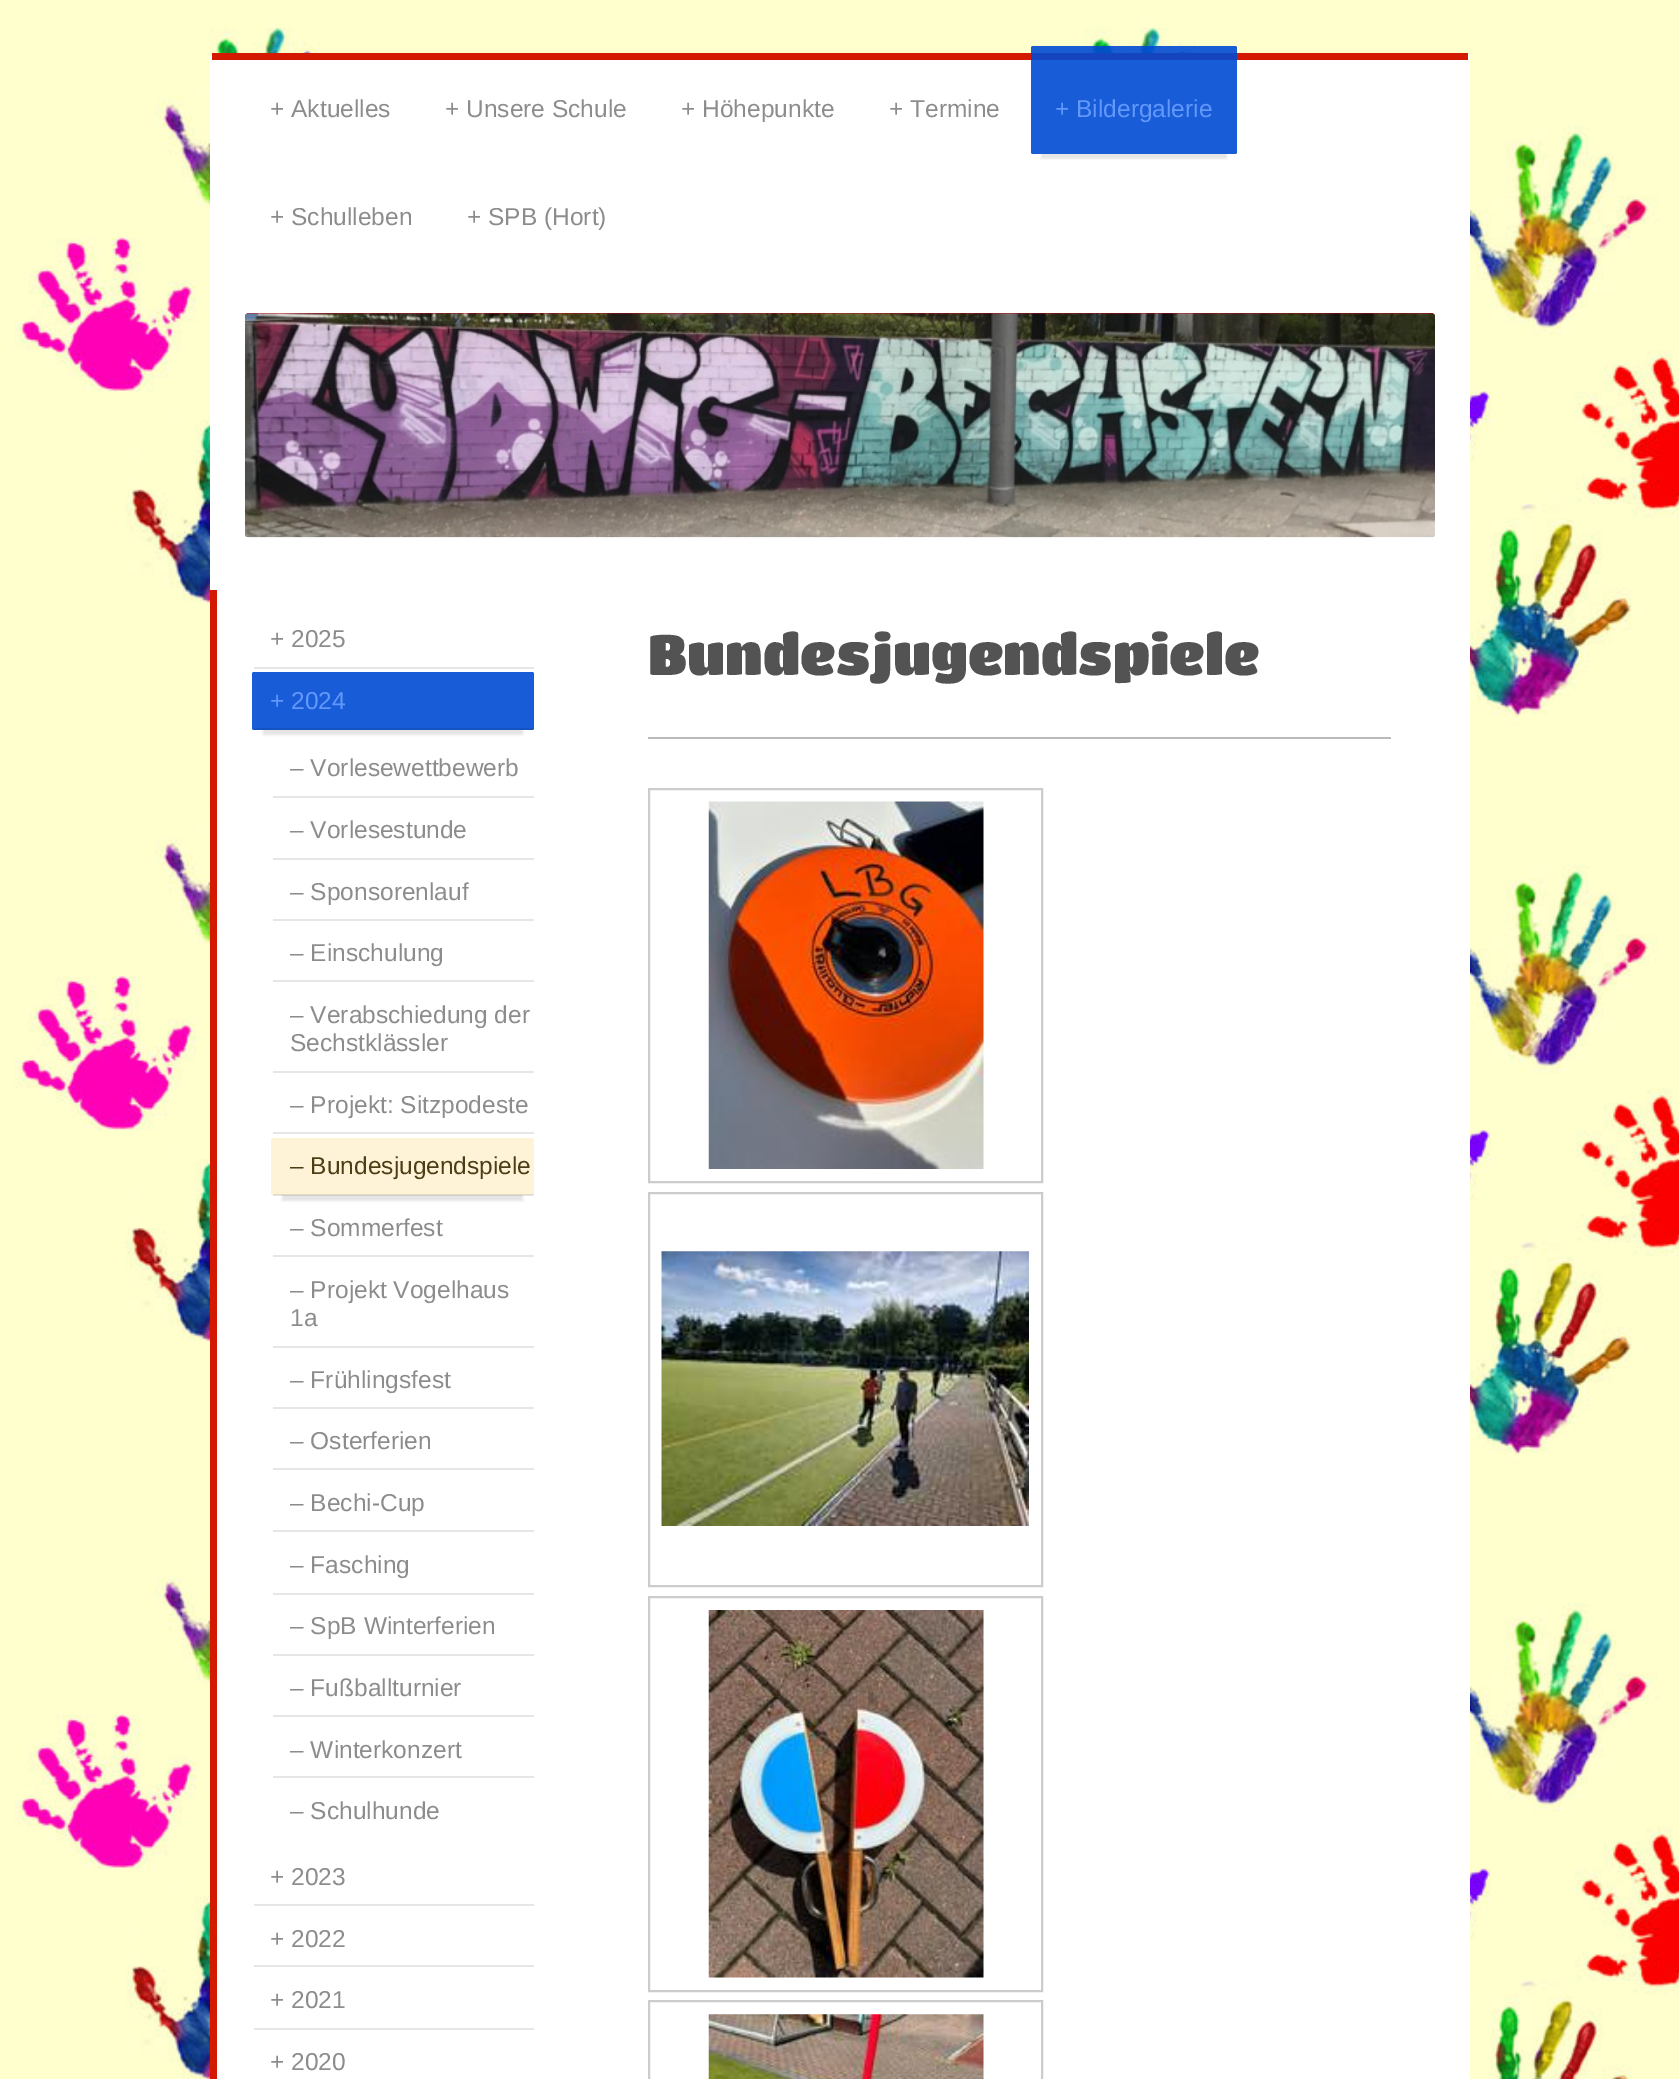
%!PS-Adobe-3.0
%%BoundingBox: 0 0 1679 2079
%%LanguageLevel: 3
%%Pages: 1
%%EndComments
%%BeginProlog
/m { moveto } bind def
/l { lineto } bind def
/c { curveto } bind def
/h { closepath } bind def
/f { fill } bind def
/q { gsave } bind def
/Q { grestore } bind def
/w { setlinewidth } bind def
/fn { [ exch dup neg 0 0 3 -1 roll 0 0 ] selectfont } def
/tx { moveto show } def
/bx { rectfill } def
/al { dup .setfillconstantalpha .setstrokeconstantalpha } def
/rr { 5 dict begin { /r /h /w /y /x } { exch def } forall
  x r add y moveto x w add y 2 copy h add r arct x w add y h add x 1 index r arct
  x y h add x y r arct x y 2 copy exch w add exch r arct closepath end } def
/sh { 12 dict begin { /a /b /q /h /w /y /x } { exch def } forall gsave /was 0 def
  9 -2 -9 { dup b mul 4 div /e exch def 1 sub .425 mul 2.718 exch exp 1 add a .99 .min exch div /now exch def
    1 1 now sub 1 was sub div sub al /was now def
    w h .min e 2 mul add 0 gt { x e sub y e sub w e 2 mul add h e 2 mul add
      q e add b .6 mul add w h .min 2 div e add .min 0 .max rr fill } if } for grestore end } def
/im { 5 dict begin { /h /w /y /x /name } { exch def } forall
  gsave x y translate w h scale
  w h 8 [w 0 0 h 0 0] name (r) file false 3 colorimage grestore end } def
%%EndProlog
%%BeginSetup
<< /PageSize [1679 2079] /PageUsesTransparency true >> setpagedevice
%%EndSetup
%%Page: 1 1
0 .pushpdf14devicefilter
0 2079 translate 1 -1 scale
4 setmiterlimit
1 setgray
0 0 1679 2079 bx
(image0.raw) 0 0 1679 2079 im
214 53 m 1466 53 l 1468 53 1470 55 1470 57 c 1470 2079 l 1470 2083 1467 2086 1463 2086 c 217 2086 l 213 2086 210 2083 210 2079 c 210 57 l 210 55 212 53 214 53 c h f
0.827 0.098 0 setrgbcolor
212 53 1256 7 bx
/LiberationSans-Regular 24.5 fn
0.549 setgray
(+ Aktuelles) 270 117 tx
(+ Unsere Schule) 445 117 tx
(+ Höhepunkte) 681 117 tx
(+ Termine) 889 117 tx
q
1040 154 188 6 rectclip
0 setgray
1041 72 186 87 0 1 0.1 sh
Q
0.9 al
0 0.29 0.827 setrgbcolor
1031 46 206 108 2 rr f
1 al
0.384 0.596 0.984 setrgbcolor
(+ Bildergalerie) 1055 117 tx
0.549 setgray
(+ Schulleben) 270 225 tx
(+ SPB \(Hort\)) 467 225 tx
(image1.raw) 245 313 1190 225 im
0.788 0.02 0.035 setrgbcolor
245 313 1190 224 4 rr f
(image2.raw) 245 313 1190 225 im
0.827 0.098 0 setrgbcolor
210 590 7 1489 bx
0.902 setgray
254 667 280 2 bx
0.549 setgray
(+ 2025) 270 647 tx
q
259 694 m 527 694 l 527 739 l 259 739 l h 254 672 m 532 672 l 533 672 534 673 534 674 c 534 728 l 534 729 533 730 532 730 c 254 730 l 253 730 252 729 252 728 c 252 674 l 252 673 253 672 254 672 c h eoclip newpath
0 setgray
263 698 260 37 0 1 0.1 sh
Q
0.9 al
0 0.29 0.827 setrgbcolor
252 672 282 58 2 rr f
0.1 al
0 setgray
254 728 280 2 bx
1 al
0.384 0.596 0.984 setrgbcolor
(+ 2024) 270 709 tx
0.902 setgray
273 796 261 2 bx
0.549 setgray
(– Vorlesewettbewerb) 290 776 tx
0.902 setgray
273 858 261 2 bx
0.549 setgray
(– Vorlesestunde) 290 838 tx
0.902 setgray
273 919 261 2 bx
0.549 setgray
(– Sponsorenlauf) 290 900 tx
0.902 setgray
273 980 261 2 bx
0.549 setgray
(– Einschulung) 290 961 tx
0.902 setgray
273 1071 261 2 bx
0.549 setgray
(– Verabschiedung der) 290 1023 tx
(Sechstklässler) 290 1051 tx
0.902 setgray
273 1132 261 2 bx
0.549 setgray
(– Projekt: Sitzpodeste) 290 1113 tx
0 setgray
282 1164 241 37 0 1 0.1 sh
1 0.953 0.843 setrgbcolor
271 1138 263 57 2 rr f
0.1 al
0 setgray
273 1194 261 2 bx
1 al
0.302 0.239 0.082 setrgbcolor
(– Bundesjugendspiele) 290 1174 tx
0.902 setgray
273 1255 261 2 bx
0.549 setgray
(– Sommerfest) 290 1236 tx
0.902 setgray
273 1346 261 2 bx
0.549 setgray
(– Projekt Vogelhaus) 290 1298 tx
(1a) 290 1326 tx
0.902 setgray
273 1407 261 2 bx
0.549 setgray
(– Frühlingsfest) 290 1388 tx
0.902 setgray
273 1468 261 2 bx
0.549 setgray
(– Osterferien) 290 1449 tx
0.902 setgray
273 1530 261 2 bx
0.549 setgray
(– Bechi-Cup) 290 1511 tx
0.902 setgray
273 1593 261 2 bx
0.549 setgray
(– Fasching) 290 1573 tx
0.902 setgray
273 1654 261 2 bx
0.549 setgray
(– SpB Winterferien) 290 1634 tx
0.902 setgray
273 1715 261 2 bx
0.549 setgray
(– Fußballturnier) 290 1696 tx
0.902 setgray
273 1776 261 2 bx
0.549 setgray
(– Winterkonzert) 290 1758 tx
(– Schulhunde) 290 1819 tx
0.902 setgray
254 1904 280 2 bx
0.549 setgray
(+ 2023) 270 1885 tx
0.902 setgray
254 1965 280 2 bx
0.549 setgray
(+ 2022) 270 1947 tx
0.902 setgray
254 2028 280 2 bx
0.549 setgray
(+ 2021) 270 2008 tx
(+ 2020) 270 2070 tx
/TitanOne-Regular 56 fn
0.325 setgray
(Bundesjugendspiele) 648 675 tx
0.729 setgray
648 737 743 2 bx
0.8 setgray
2 w
649 789 393 393 rectstroke
(image3.raw) 708 801 276 368 im
649 1193 393 393 rectstroke
(image4.raw) 661 1251 368 275 im
649 1597 393 394 rectstroke
(image5.raw) 708 1610 276 368 im
649 2001 393 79 rectstroke
(image6.raw) 708 2014 276 65 im
.poppdf14devicefilter showpage
%%EOF
